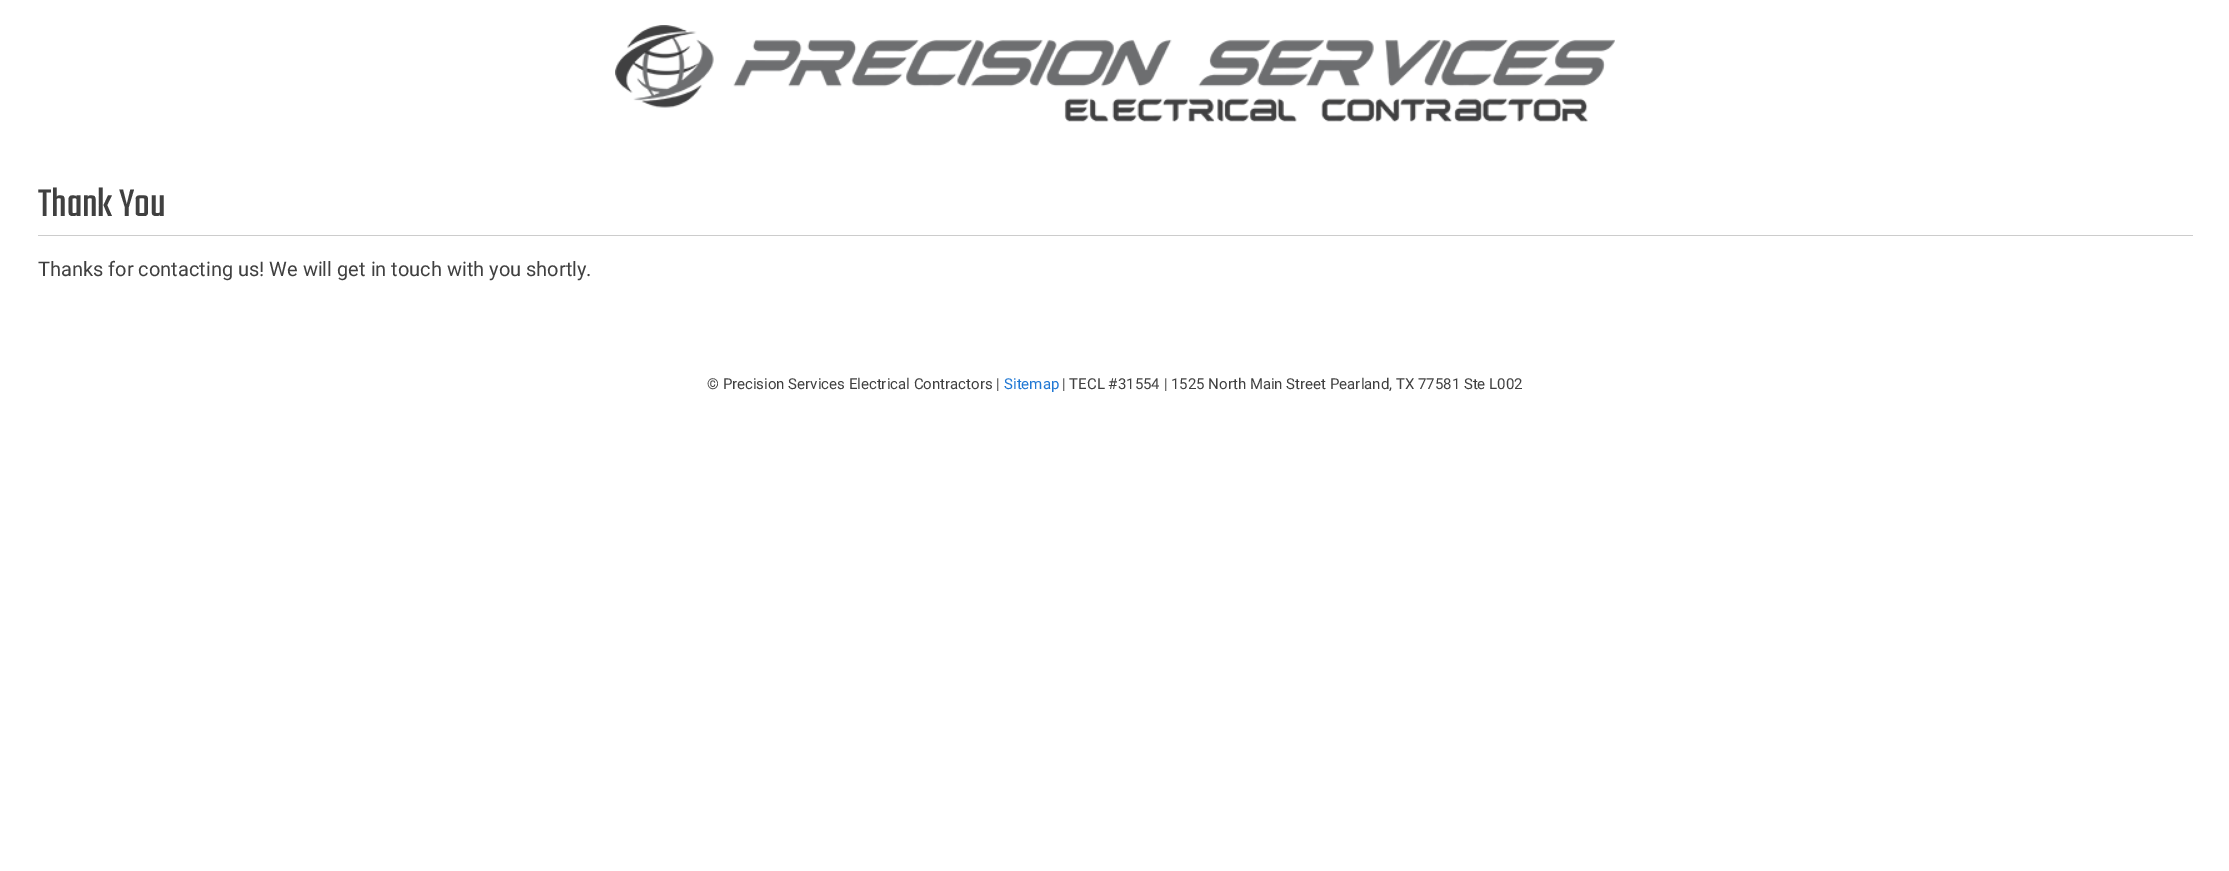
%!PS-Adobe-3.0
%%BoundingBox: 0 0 2229 871
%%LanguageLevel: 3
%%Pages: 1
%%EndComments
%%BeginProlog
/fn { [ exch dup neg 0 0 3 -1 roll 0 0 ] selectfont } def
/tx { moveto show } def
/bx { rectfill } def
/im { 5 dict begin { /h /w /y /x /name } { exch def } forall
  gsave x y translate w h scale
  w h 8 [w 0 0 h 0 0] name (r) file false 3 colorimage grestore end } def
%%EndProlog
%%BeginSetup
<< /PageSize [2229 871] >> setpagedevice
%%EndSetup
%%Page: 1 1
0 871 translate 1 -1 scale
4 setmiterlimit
1 setgray
0 0 2229 871 bx
(image0.raw) 615 25 1000 97 im
0.8 setgray
38 235 2155 1 bx
/Teko-Regular 42.5 fn
0.251 setgray
(Thank You) 38 216 tx
/Roboto-Regular 20 fn
(Thanks for contacting us! We will get in touch with you shortly.) 38 276 tx
/Roboto-Regular 15 fn
(© Precision Services Electrical Contractors |) 707 389 tx
0.125 0.471 0.831 setrgbcolor
(Sitemap) 1004 389 tx
0.251 setgray
(| TECL #31554 | 1525 North Main Street Pearland, TX 77581 Ste L002) 1062 389 tx
showpage
%%EOF
